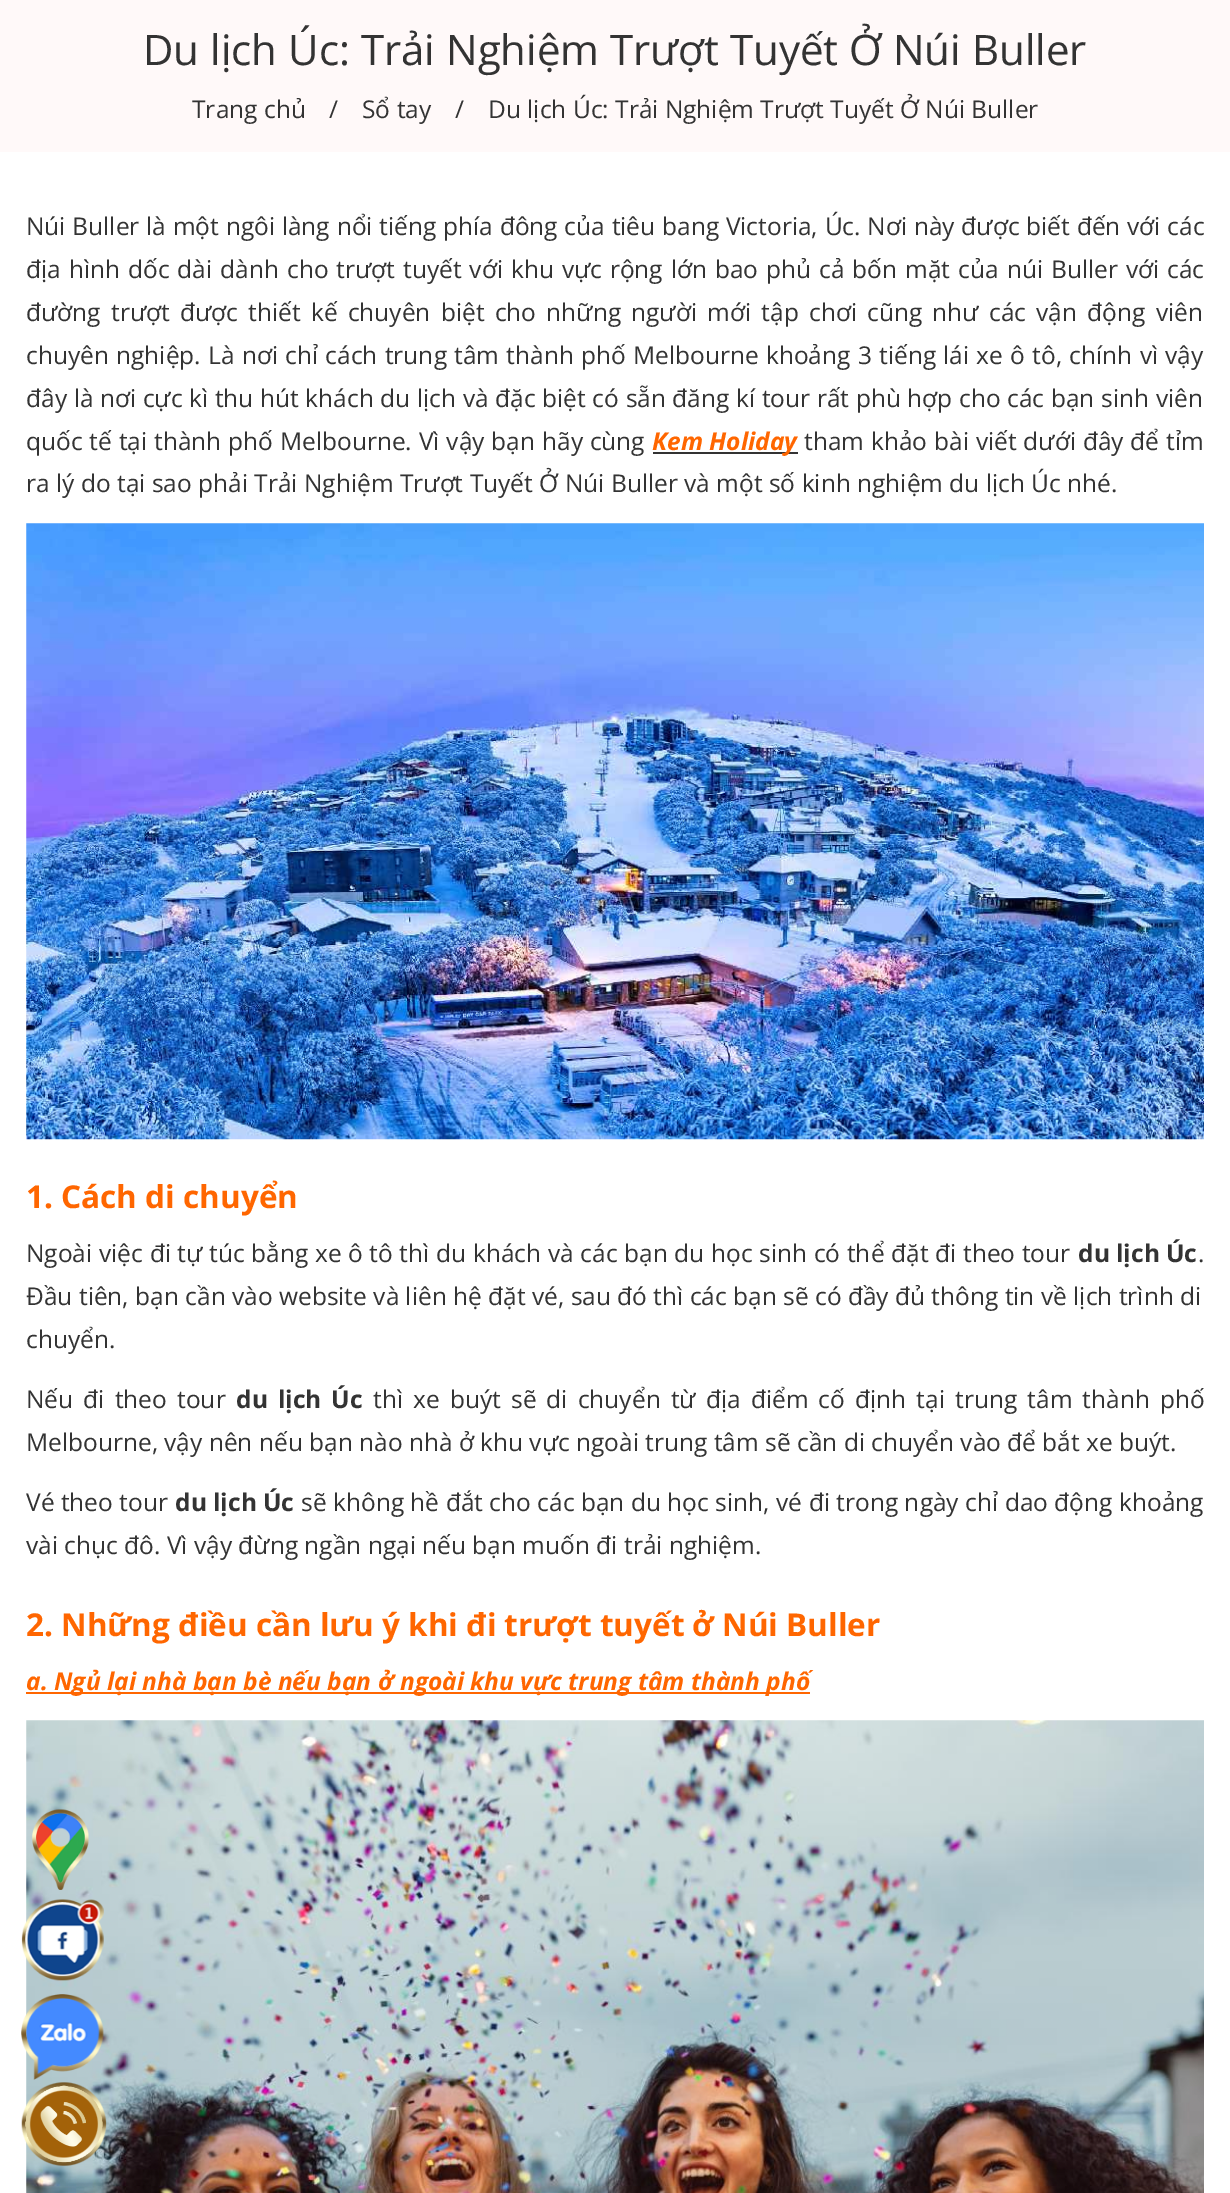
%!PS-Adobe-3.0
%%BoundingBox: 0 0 1230 2193
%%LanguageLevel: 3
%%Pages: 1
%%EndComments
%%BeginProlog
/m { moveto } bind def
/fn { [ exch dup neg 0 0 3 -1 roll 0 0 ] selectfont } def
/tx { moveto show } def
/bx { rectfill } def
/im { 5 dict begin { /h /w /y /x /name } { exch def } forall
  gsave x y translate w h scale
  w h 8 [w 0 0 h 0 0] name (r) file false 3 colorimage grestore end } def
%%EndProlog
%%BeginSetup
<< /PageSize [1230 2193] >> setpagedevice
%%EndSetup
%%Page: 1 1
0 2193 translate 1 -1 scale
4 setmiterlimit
1 setgray
0 0 1230 2193 bx
1 0.976 0.976 setrgbcolor
0 0 1230 152 bx
/OpenSans-Regular 42 fn
0.2 setgray
(Du lịch Úc: Trải Nghiệm Trượt Tuyết Ở Núi Buller) 143 65 tx
/OpenSans-Regular 24.5 fn
(Trang chủ) 192 118 tx
(/) 329 118 tx
(Sổ tay) 362 118 tx
(/) 455 118 tx
(Du lịch Úc: Trải Nghiệm Trượt Tuyết Ở Núi Buller) 488 118 tx
26 235 m 0.4 0 32 (Núi Buller là một ngôi làng nổi tiếng phía đông của tiêu bang Victoria, Úc. Nơi này được biết đến với các) widthshow
26 278 m 1.6 0 32 (địa hình dốc dài dành cho trượt tuyết với khu vực rộng lớn bao phủ cả bốn mặt của núi Buller với các) widthshow
26 321 m 3.9 0 32 (đường trượt được thiết kế chuyên biệt cho những người mới tập chơi cũng như các vận động viên) widthshow
26 364 m 0.9 0 32 (chuyên nghiệp. Là nơi chỉ cách trung tâm thành phố Melbourne khoảng 3 tiếng lái xe ô tô, chính vì vậy) widthshow
26 407 m 0.25 0 32 (đây là nơi cực kì thu hút khách du lịch và đặc biệt có sẵn đăng kí tour rất phù hợp cho các bạn sinh viên) widthshow
26 450 m 0.5 0 32 (quốc tế tại thành phố Melbourne. Vì vậy bạn hãy cùng) widthshow
653 452 145 2 bx
/OpenSans-BoldItalic 24.5 fn
1 0.4 0 setrgbcolor
(Kem Holiday) 652 450 tx
/OpenSans-Regular 24.5 fn
0.2 setgray
804 450 m 0.5 0 32 (tham khảo bài viết dưới đây để tỉm) widthshow
(ra lý do tại sao phải Trải Nghiệm Trượt Tuyết Ở Núi Buller và một số kinh nghiệm du lịch Úc nhé.) 26 492 tx
(image0.raw) 26 523 1178 617 im
/OpenSans-Bold 31.5 fn
1 0.4 0 setrgbcolor
(1. Cách di chuyển) 26 1208 tx
/OpenSans-Regular 24.5 fn
0.2 setgray
26 1262 m 0.3 0 32 (Ngoài việc đi tự túc bằng xe ô tô thì du khách và các bạn du học sinh có thể đặt đi theo tour) widthshow
/OpenSans-Bold 24.5 fn
(du lịch Úc) 1078 1262 tx
/OpenSans-Regular 24.5 fn
(.) 1198 1262 tx
(Đầu tiên, bạn cần vào website và liên hệ đặt vé, sau đó thì các bạn sẽ có đầy đủ thông tin về lịch trình di) 26 1305 tx
(chuyển.) 26 1348 tx
26 1408 m 3.75 0 32 (Nếu đi theo tour) widthshow
/OpenSans-Bold 24.5 fn
236 1408 m 3.75 0 32 (du lịch Úc) widthshow
/OpenSans-Regular 24.5 fn
373 1408 m 3.75 0 32 (thì xe buýt sẽ di chuyển từ địa điểm cố định tại trung tâm thành phố) widthshow
(Melbourne, vậy nên nếu bạn nào nhà ở khu vực ngoài trung tâm sẽ cần di chuyển vào để bắt xe buýt.) 26 1451 tx
(Vé theo tour) 26 1511 tx
/OpenSans-Bold 24.5 fn
(du lịch Úc) 175 1511 tx
/OpenSans-Regular 24.5 fn
301 1511 m 0.1 0 32 (sẽ không hề đắt cho các bạn du học sinh, vé đi trong ngày chỉ dao động khoảng) widthshow
(vài chục đô. Vì vậy đừng ngần ngại nếu bạn muốn đi trải nghiệm.) 26 1554 tx
/OpenSans-Bold 31.5 fn
1 0.4 0 setrgbcolor
(2. Những điều cần lưu ý khi đi trượt tuyết ở Núi Buller) 26 1636 tx
26 1692 784 2 bx
/OpenSans-BoldItalic 24.5 fn
(a. Ngủ lại nhà bạn bè nếu bạn ở ngoài khu vực trung tâm thành phố) 26 1690 tx
(image1.raw) 26 1720 1178 473 im
(image2.raw) 32 1809 57 81 im
(image3.raw) 21 1899 83 82 im
(image4.raw) 21 1994 83 86 im
(image5.raw) 21 2082 86 85 im
showpage
%%EOF
